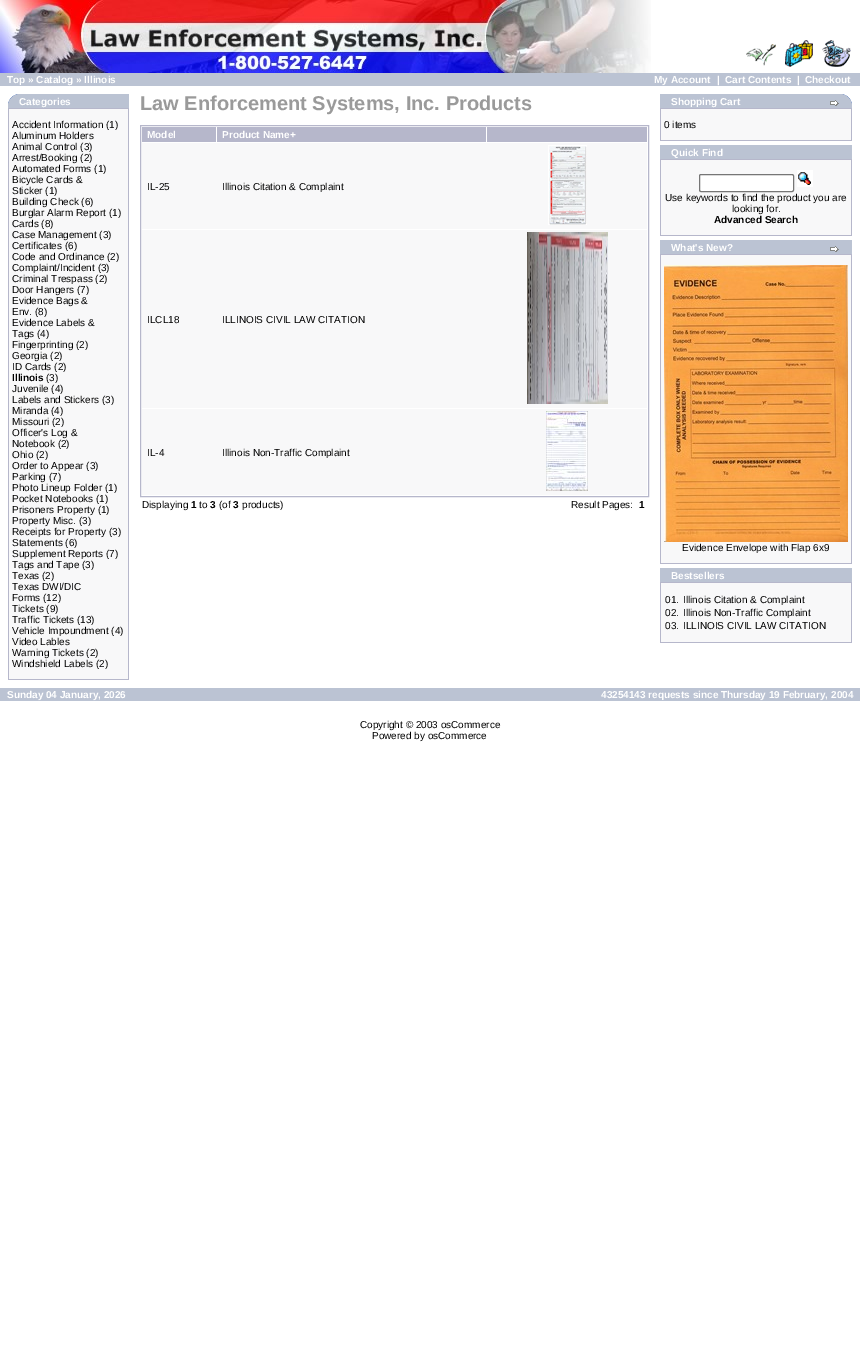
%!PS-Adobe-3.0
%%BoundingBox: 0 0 860 1361
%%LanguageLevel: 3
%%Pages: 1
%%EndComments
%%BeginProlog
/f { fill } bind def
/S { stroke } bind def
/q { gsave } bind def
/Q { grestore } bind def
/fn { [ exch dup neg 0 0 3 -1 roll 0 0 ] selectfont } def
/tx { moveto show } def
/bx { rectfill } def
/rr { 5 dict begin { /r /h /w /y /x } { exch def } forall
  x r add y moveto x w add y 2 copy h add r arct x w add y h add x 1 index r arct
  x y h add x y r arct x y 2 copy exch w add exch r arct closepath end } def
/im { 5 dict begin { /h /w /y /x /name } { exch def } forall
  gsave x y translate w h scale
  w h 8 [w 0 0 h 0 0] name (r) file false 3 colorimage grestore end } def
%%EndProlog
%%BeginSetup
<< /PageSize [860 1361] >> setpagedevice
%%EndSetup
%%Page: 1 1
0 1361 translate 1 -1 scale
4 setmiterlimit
1 setgray
0 0 860 1361 bx
(image0.raw) 0 0 651 73 im
(image1.raw) 746 44 30 22 im
(image2.raw) 785 40 28 27 im
(image3.raw) 822 40 29 27 im
0.733 0.765 0.827 setrgbcolor
0 73 860 13 bx
/LiberationSans-Bold 10 fn
1 setgray
(Top » Catalog » Illinois) 7 83 tx
(My Account) 654 83 tx
(|) 717 83 tx
(Cart Contents) 725 83 tx
(|) 797 83 tx
(Checkout) 805 83 tx
0.733 0.765 0.827 setrgbcolor
8 94 121 14 bx
(image4.raw) 8 94 10 10 im
1 setgray
(Categories) 19 105 tx
0.714 0.718 0.796 setrgbcolor
8 108 121 572 bx
0.973 0.973 0.976 setrgbcolor
9 109 119 570 bx
/LiberationSans-Regular 10 fn
0 setgray
(Accident Information \(1\)) 12 128 tx
(Aluminum Holders) 12 139 tx
(Animal Control \(3\)) 12 150 tx
(Arrest/Booking \(2\)) 12 161 tx
(Automated Forms \(1\)) 12 172 tx
(Bicycle Cards &) 12 183 tx
(Sticker \(1\)) 12 194 tx
(Building Check \(6\)) 12 205 tx
(Burglar Alarm Report \(1\)) 12 216 tx
(Cards \(8\)) 12 227 tx
(Case Management \(3\)) 12 238 tx
(Certificates \(6\)) 12 249 tx
(Code and Ordinance \(2\)) 12 260 tx
(Complaint/Incident \(3\)) 12 271 tx
(Criminal Trespass \(2\)) 12 282 tx
(Door Hangers \(7\)) 12 293 tx
(Evidence Bags &) 12 304 tx
(Env. \(8\)) 12 315 tx
(Evidence Labels &) 12 326 tx
(Tags \(4\)) 12 337 tx
(Fingerprinting \(2\)) 12 348 tx
(Georgia \(2\)) 12 359 tx
(ID Cards \(2\)) 12 370 tx
/LiberationSans-Bold 10 fn
(Illinois) 12 381 tx
/LiberationSans-Regular 10 fn
(\(3\)) 46 381 tx
(Juvenile \(4\)) 12 392 tx
(Labels and Stickers \(3\)) 12 403 tx
(Miranda \(4\)) 12 414 tx
(Missouri \(2\)) 12 425 tx
(Officer's Log &) 12 436 tx
(Notebook \(2\)) 12 447 tx
(Ohio \(2\)) 12 458 tx
(Order to Appear \(3\)) 12 469 tx
(Parking \(7\)) 12 480 tx
(Photo Lineup Folder \(1\)) 12 491 tx
(Pocket Notebooks \(1\)) 12 502 tx
(Prisoners Property \(1\)) 12 513 tx
(Property Misc. \(3\)) 12 524 tx
(Receipts for Property \(3\)) 12 535 tx
(Statements \(6\)) 12 546 tx
(Supplement Reports \(7\)) 12 557 tx
(Tags and Tape \(3\)) 12 568 tx
(Texas \(2\)) 12 579 tx
(Texas DWI/DIC) 12 590 tx
(Forms \(12\)) 12 601 tx
(Tickets \(9\)) 12 612 tx
(Traffic Tickets \(13\)) 12 623 tx
(Vehicle Impoundment \(4\)) 12 634 tx
(Video Lables) 12 645 tx
(Warning Tickets \(2\)) 12 656 tx
(Windshield Labels \(2\)) 12 667 tx
/LiberationSans-Bold 20 fn
0.604 setgray
(Law Enforcement Systems, Inc. Products) 140 110 tx
0.714 0.718 0.796 setrgbcolor
140.5 125.5 508 371 rectstroke
142 127 74 15 bx
/LiberationSans-Bold 10 fn
1 setgray
(Model) 147 138 tx
0.714 0.718 0.796 setrgbcolor
217 127 269 15 bx
1 setgray
(Product Name+) 222 138 tx
0.714 0.718 0.796 setrgbcolor
487 127 160 15 bx
0.973 0.973 0.976 setrgbcolor
142 143 505 86 bx
/LiberationSans-Regular 10 fn
0 setgray
(IL-25) 147 190 tx
(Illinois Citation & Complaint) 222 190 tx
(image5.raw) 548 145 39 80 im
0.973 0.973 0.976 setrgbcolor
142 230 505 178 bx
0 setgray
(ILCL18) 147 323 tx
(ILLINOIS CIVIL LAW CITATION) 222 323 tx
(image6.raw) 527 232 81 172 im
0.973 0.973 0.976 setrgbcolor
142 409 505 86 bx
0 setgray
(IL-4) 147 456 tx
(Illinois Non-Traffic Complaint) 222 456 tx
(image7.raw) 546 411 42 80 im
(Displaying) 142 508 tx
/LiberationSans-Bold 10 fn
(1) 191 508 tx
/LiberationSans-Regular 10 fn
(to) 199 508 tx
/LiberationSans-Bold 10 fn
(3) 210 508 tx
/LiberationSans-Regular 10 fn
(\(of) 219 508 tx
/LiberationSans-Bold 10 fn
(3) 233 508 tx
/LiberationSans-Regular 10 fn
(products\)) 242 508 tx
(Result Pages:) 571 508 tx
/LiberationSans-Bold 10 fn
(1) 639 508 tx
0.733 0.765 0.827 setrgbcolor
660 94 192 14 bx
1 setgray
(Shopping Cart) 671 105 tx
(image8.raw) 830 100 9 6 im
(image9.raw) 842 94 10 10 im
0.714 0.718 0.796 setrgbcolor
660 108 192 33 bx
0.973 0.973 0.976 setrgbcolor
661 109 190 31 bx
/LiberationSans-Regular 10 fn
0 setgray
(0 items) 664 128 tx
0.733 0.765 0.827 setrgbcolor
660 145 192 14 bx
/LiberationSans-Bold 10 fn
1 setgray
(Quick Find) 671 156 tx
0.714 0.718 0.796 setrgbcolor
660 159 192 77 bx
0.973 0.973 0.976 setrgbcolor
661 160 190 75 bx
1 setgray
699.5 174.5 94 17 1.5 rr q f Q
0.463 setgray
S
(image10.raw) 797 170 16 17 im
/LiberationSans-Regular 10 fn
0 setgray
(Use keywords to find the product you are) 665 201 tx
(looking for.) 732 212 tx
/LiberationSans-Bold 10 fn
(Advanced Search) 714 223 tx
0.733 0.765 0.827 setrgbcolor
660 240 192 14 bx
1 setgray
(What's New?) 671 251 tx
(image8.raw) 830 246 9 6 im
0.714 0.718 0.796 setrgbcolor
660 254 192 310 bx
0.973 0.973 0.976 setrgbcolor
661 255 190 308 bx
(image11.raw) 664 265 184 277 im
/LiberationSans-Regular 10 fn
0 setgray
(Evidence Envelope with Flap 6x9) 682 551 tx
0.733 0.765 0.827 setrgbcolor
660 568 192 14 bx
/LiberationSans-Bold 10 fn
1 setgray
(Bestsellers) 671 579 tx
0.714 0.718 0.796 setrgbcolor
660 582 192 61 bx
0.973 0.973 0.976 setrgbcolor
661 583 190 59 bx
/LiberationSans-Regular 10 fn
0 setgray
(01.) 665 603 tx
(Illinois Citation & Complaint) 683 603 tx
(02.) 665 616 tx
(Illinois Non-Traffic Complaint) 683 616 tx
(03.) 665 629 tx
(ILLINOIS CIVIL LAW CITATION) 683 629 tx
0.733 0.765 0.827 setrgbcolor
0 688 860 13 bx
/LiberationSans-Bold 10 fn
1 setgray
(Sunday 04 January, 2026) 7 698 tx
(43254143 requests since Thursday 19 February, 2004) 601 698 tx
/LiberationSans-Regular 10 fn
0 setgray
(Copyright © 2003 osCommerce) 360 728 tx
(Powered by osCommerce) 372 739 tx
showpage
%%EOF
